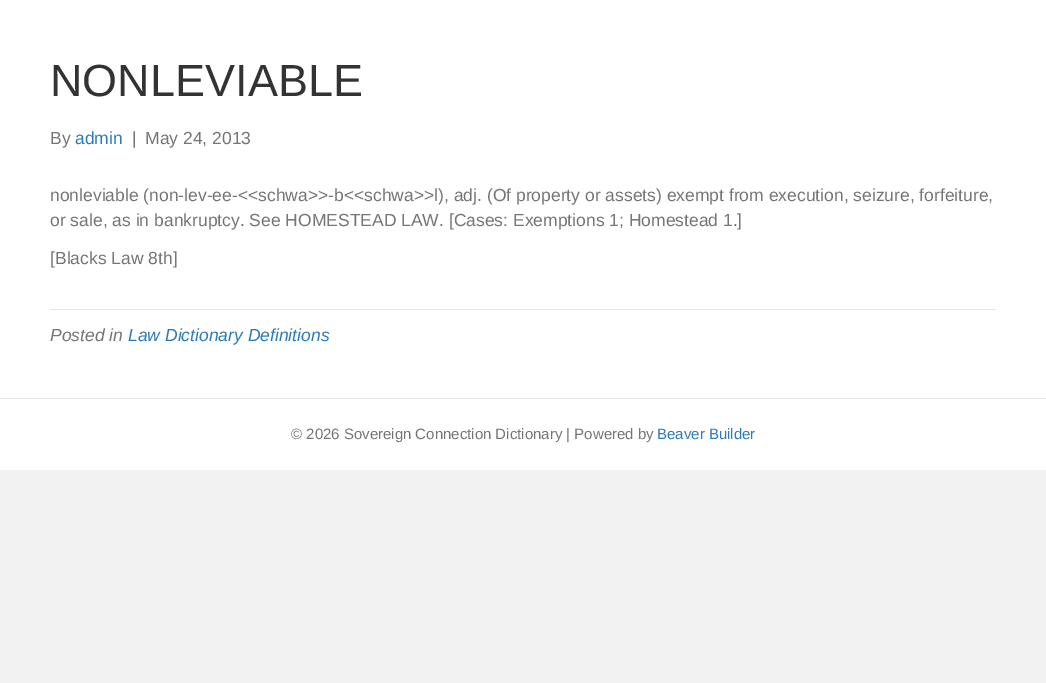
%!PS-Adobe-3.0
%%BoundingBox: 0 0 1046 683
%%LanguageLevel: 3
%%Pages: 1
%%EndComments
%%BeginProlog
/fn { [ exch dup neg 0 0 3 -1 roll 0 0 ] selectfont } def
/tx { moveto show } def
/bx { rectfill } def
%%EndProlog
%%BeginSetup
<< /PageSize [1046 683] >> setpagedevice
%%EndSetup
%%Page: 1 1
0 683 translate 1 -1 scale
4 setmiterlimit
0.949 setgray
0 0 1046 683 bx
1 setgray
0 0 1046 398 bx
/LiberationSans-Regular 45 fn
0.2 setgray
(NONLEVIABLE) 50 96 tx
/LiberationSans-Regular 17.5 fn
0.459 setgray
(By) 50 144 tx
0.169 0.482 0.725 setrgbcolor
(admin) 75 144 tx
0.459 setgray
(|) 132 144 tx
(May 24, 2013) 145 144 tx
(nonleviable \(non-lev-ee-<<schwa>>-b<<schwa>>l\), adj. \(Of property or assets\) exempt from execution, seizure, forfeiture,) 50 201 tx
(or sale, as in bankruptcy. See HOMESTEAD LAW. [Cases: Exemptions 1; Homestead 1.]) 50 226 tx
([Blacks Law 8th]) 50 264 tx
0.902 setgray
50 309 946 1 bx
/LiberationSans-Italic 17.5 fn
0.459 setgray
(Posted in) 50 341 tx
0.169 0.482 0.725 setrgbcolor
(Law Dictionary Definitions) 128 341 tx
1 setgray
0 399 1046 71 bx
0.902 setgray
0 398 1046 1 bx
/LiberationSans-Regular 15 fn
0.459 setgray
(© 2026 Sovereign Connection Dictionary | Powered by) 291 439 tx
0.169 0.482 0.725 setrgbcolor
(Beaver Builder) 657 439 tx
showpage
%%EOF
